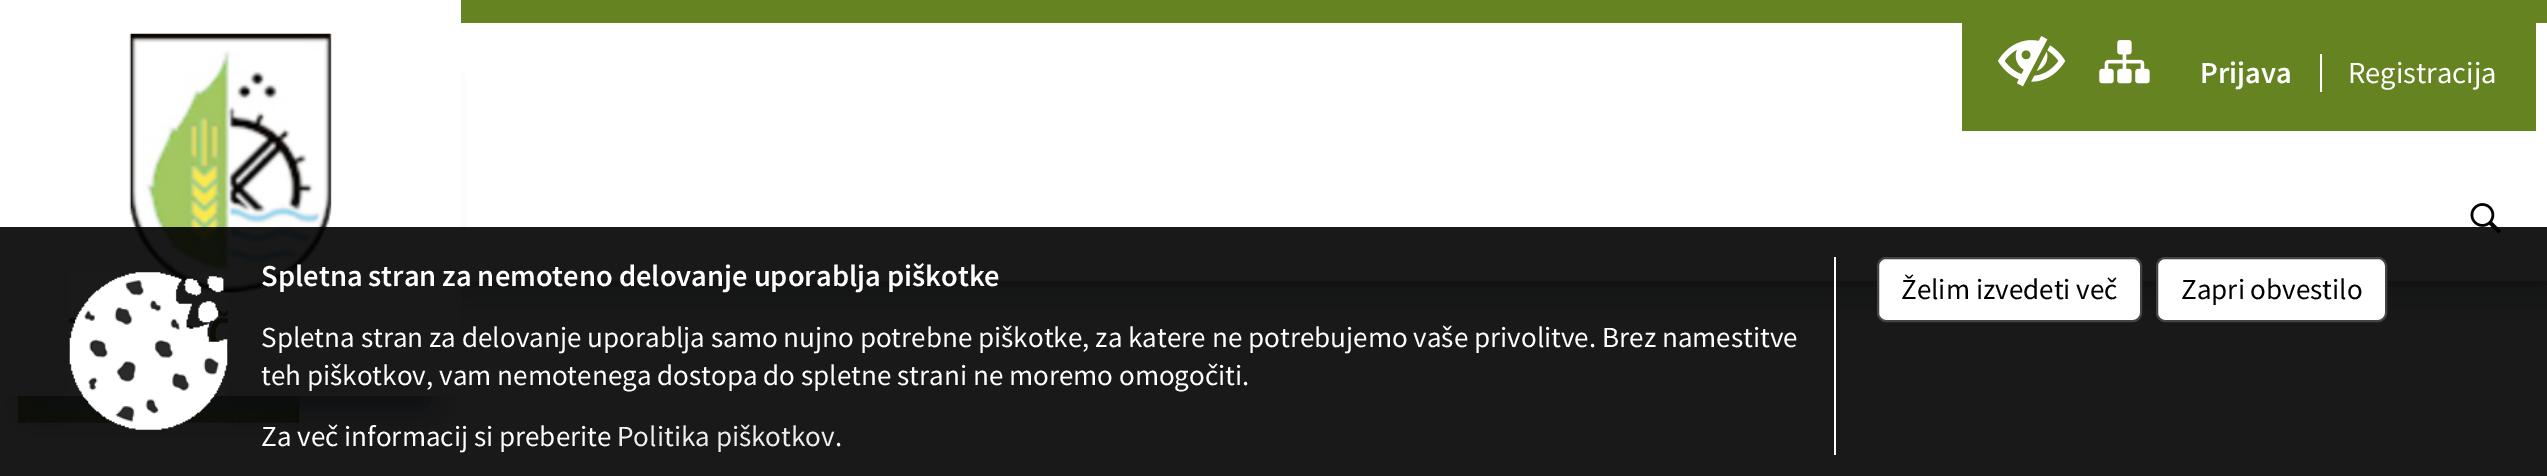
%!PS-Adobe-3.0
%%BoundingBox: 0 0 2547 476
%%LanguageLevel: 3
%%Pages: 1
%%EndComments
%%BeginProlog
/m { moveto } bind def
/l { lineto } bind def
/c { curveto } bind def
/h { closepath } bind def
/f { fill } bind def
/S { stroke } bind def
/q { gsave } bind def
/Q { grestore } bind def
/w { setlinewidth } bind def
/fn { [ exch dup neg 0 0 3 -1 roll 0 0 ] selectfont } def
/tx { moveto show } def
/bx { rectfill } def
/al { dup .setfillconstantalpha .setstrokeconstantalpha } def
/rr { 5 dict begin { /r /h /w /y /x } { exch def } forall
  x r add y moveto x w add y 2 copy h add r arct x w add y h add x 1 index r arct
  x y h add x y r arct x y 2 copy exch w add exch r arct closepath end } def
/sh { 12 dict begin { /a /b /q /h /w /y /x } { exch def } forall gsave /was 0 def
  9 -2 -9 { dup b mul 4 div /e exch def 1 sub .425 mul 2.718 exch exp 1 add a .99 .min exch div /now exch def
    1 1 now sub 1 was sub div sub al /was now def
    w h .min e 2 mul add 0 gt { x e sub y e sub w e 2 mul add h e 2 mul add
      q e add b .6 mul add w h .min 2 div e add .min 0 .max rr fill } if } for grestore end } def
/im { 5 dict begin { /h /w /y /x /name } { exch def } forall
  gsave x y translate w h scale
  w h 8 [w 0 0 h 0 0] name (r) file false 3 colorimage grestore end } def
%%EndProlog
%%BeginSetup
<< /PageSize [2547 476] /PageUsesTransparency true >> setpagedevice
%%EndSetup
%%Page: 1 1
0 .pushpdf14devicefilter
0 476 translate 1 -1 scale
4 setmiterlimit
1 setgray
0 0 2547 476 bx
0.443 0.537 0.624 setrgbcolor
5 0 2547 281 0 22.5 1 sh
1 setgray
461 23 2086 258 bx
(image4.raw) 18 396 282 27 im
0.443 0.537 0.624 setrgbcolor
34 79 394 328 0 17 1 sh
1 setgray
0 0 m 461 0 l 461 389 l 461 393 458 396 454 396 c 7 396 l 3 396 0 393 0 389 c h f
(image0.raw) 129 33 203 260 im
(image1.raw) 2470 203 32 31 im
0.4 0.514 0.129 setrgbcolor
461 0 2086 23 bx
1962 23 574 108 bx
(image2.raw) 1998 36 68 51 im
(image3.raw) 2099 40 51 44 im
/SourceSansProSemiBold-SemiBold 30.5 fn
1 setgray
(Prijava) 2200 83 tx
2320 54 2 38 bx
/SourceSansPro-Regular 30.5 fn
(Registracija) 2348 83 tx
0.9 al
0 setgray
0 227 2547 249 bx
1 al
(image5.raw) 69 272 159 158 im
1 setgray
1834 257 2 198 bx
/SourceSansProSemiBold-SemiBold 30.5 fn
261 286 m -0.25 0 32 (Spletna stran za nemoteno delovanje uporablja piškotke) widthshow
/SourceSansPro-Regular 29.07 fn
(Spletna stran za delovanje uporablja samo nujno potrebne piškotke, za katere ne potrebujemo vaše privolitve. Brez namestitve) 261 347 tx
(teh piškotkov, vam nemotenega dostopa do spletne strani ne moremo omogočiti.) 261 385 tx
(Za več informacij si preberite) 261 446 tx
0.933 setgray
(Politika piškotkov) 617 446 tx
1 setgray
(.) 835 446 tx
1878 258 263 63 8 rr q f Q
0.267 setgray
2 w
S
0 setgray
(Želim izvedeti več) 1901 299 tx
1 setgray
2157 258 229 63 8 rr q f Q
0.267 setgray
S
0 setgray
(Zapri obvestilo) 2181 299 tx
.poppdf14devicefilter showpage
%%EOF
